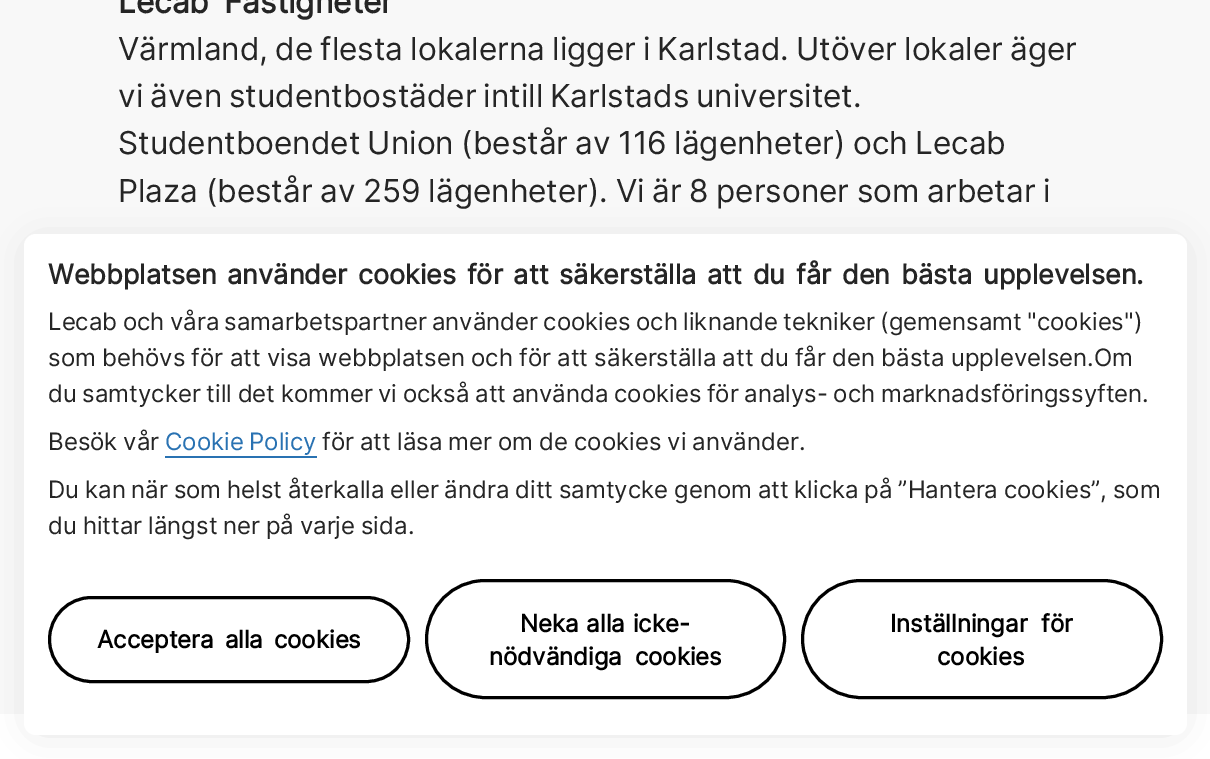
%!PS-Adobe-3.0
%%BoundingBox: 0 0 1210 759
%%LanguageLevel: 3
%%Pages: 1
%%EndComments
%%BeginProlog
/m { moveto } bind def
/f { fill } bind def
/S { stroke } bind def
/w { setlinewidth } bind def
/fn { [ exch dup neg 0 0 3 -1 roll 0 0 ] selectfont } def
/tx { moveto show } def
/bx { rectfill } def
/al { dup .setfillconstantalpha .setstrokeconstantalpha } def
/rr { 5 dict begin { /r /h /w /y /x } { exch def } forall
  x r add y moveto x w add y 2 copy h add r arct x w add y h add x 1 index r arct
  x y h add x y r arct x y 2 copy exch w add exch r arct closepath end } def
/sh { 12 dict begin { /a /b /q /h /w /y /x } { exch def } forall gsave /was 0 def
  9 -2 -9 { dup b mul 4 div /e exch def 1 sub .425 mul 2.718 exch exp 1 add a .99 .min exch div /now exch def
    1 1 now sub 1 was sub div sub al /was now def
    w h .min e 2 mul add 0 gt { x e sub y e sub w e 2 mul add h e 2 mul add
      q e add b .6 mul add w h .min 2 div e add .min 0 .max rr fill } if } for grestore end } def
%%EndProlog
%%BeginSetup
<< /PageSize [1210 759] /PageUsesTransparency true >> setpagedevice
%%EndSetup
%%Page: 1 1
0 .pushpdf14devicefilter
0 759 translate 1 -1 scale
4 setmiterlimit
1 setgray
0 0 1210 759 bx
0.973 setgray
0 0 1210 714 bx
/Inter-Bold 31.5 fn
0.145 setgray
118 13 m 6 0 32 (Lecab Fastigheter) widthshow
/Inter-Regular 31.5 fn
118 60 m -1.75 0 32 (Värmland, de flesta lokalerna ligger i Karlstad. Utöver lokaler äger) widthshow
118 107 m -2 0 32 (vi även studentbostäder intill Karlstads universitet.) widthshow
118 154 m -1.5 0 32 (Studentboendet Union \(består av 116 lägenheter\) och Lecab) widthshow
118 202 m -1.25 0 32 (Plaza \(består av 259 lägenheter\). Vi är 8 personer som arbetar i) widthshow
0 setgray
39 252 1133 471 0 20 0.18 sh
1 setgray
24 234 1163 501 12 rr f
/Inter-Bold 27 fn
0.145 setgray
48 284 m 3.25 0 32 (Webbplatsen använder cookies för att säkerställa att du får den bästa upplevelsen.) widthshow
/Inter-Regular 24 fn
48 330 m -1.5 0 32 (Lecab och våra samarbetspartner använder cookies och liknande tekniker \(gemensamt "cookies"\)) widthshow
48 366 m -0.5 0 32 (som behövs för att visa webbplatsen och för att säkerställa att du får den bästa upplevelsen.) widthshow
(Om) 1094 366 tx
48 402 m -1.25 0 32 (du samtycker till det kommer vi också att använda cookies för analys- och marknadsföringssyften.) widthshow
48 450 m -1 0 32 (Besök vår) widthshow
0.161 0.447 0.698 setrgbcolor
165 450 m -1.5 0 32 (Cookie Policy) widthshow
165 456 152 2 bx
0.145 setgray
322 450 m -0.75 0 32 (för att läsa mer om de cookies vi använder.) widthshow
48 498 m -1 0 32 (Du kan när som helst återkalla eller ändra ditt samtycke genom att klicka på ”Hantera cookies”, som) widthshow
48 534 m -1 0 32 (du hittar längst ner på varje sida.) widthshow
0 setgray
3 w
49.5 597.5 359 84 42 rr S
/Inter-Bold 24 fn
97 648 m 4 0 32 (Acceptera alla cookies) widthshow
426.5 580.5 358 117 58.5 rr S
520 632 m 1 0 32 (Neka alla icke-) widthshow
489 665 m 6 0 32 (nödvändiga cookies) widthshow
802.5 580.5 359 117 58.5 rr S
890 632 m 7 0 32 (Inställningar för) widthshow
(cookies) 937 665 tx
.poppdf14devicefilter showpage
%%EOF
